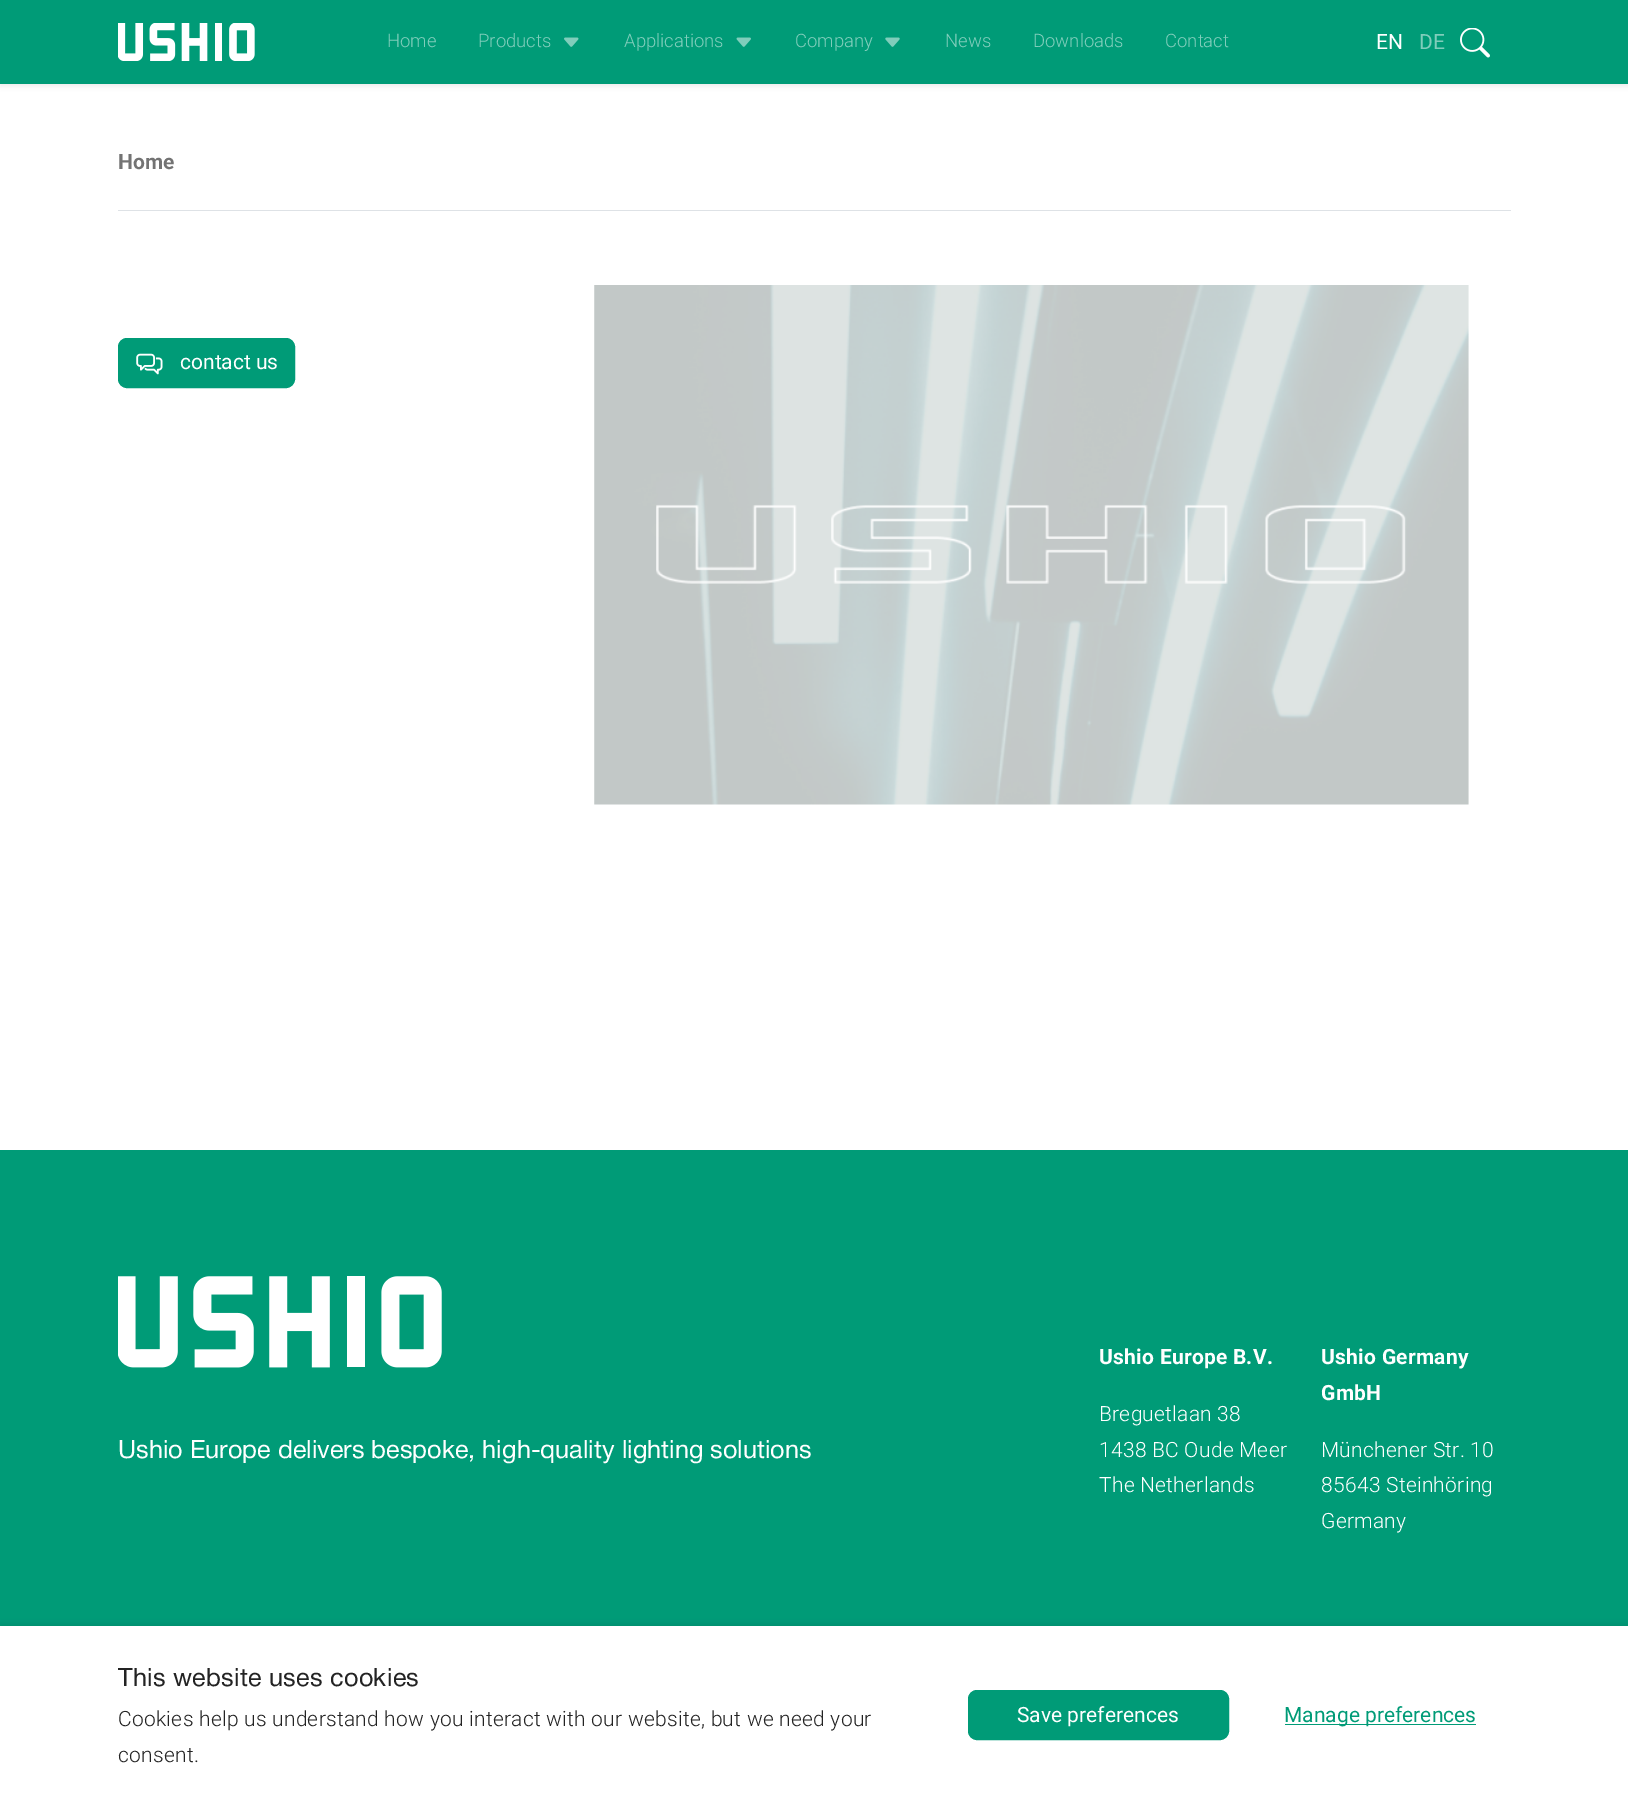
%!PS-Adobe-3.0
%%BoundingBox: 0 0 1628 1803
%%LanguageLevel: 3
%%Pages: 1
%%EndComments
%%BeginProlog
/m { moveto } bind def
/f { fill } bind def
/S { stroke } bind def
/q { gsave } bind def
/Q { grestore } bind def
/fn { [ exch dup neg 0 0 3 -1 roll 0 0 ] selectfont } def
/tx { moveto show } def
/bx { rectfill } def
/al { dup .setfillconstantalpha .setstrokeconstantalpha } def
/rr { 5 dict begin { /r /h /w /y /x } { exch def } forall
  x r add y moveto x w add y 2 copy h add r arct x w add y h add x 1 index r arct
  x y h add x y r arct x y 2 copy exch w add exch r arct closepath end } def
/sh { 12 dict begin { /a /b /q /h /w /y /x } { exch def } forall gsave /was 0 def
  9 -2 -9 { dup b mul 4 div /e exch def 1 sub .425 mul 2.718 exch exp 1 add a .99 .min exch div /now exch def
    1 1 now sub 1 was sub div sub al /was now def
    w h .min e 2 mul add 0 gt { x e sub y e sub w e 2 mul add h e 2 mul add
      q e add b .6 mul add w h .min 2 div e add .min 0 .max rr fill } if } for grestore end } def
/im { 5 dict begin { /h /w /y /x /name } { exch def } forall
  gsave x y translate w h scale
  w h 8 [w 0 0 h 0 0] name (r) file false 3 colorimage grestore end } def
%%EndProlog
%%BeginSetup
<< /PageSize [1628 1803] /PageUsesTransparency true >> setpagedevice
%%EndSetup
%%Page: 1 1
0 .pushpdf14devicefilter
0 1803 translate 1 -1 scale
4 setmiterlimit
1 setgray
0 0 1628 1803 bx
0 setgray
0 3 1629 83 0 2.5 0.07 sh
0 0.608 0.467 setrgbcolor
0 0 1628 84 bx
(image0.raw) 118 23 137 38 im
/Roboto-Light 18.5 fn
0.502 0.804 0.733 setrgbcolor
(Home) 387 47 tx
(Products) 478 47 tx
(image1.raw) 564 37 15 10 im
(Applications) 624 47 tx
(image2.raw) 736 37 15 10 im
(Company) 795 47 tx
(image3.raw) 885 37 15 10 im
(News) 945 47 tx
(Downloads) 1033 47 tx
(Contact) 1165 47 tx
/Roboto-Regular 21 fn
1 setgray
(EN) 1376 49 tx
0.502 0.804 0.733 setrgbcolor
(DE) 1419 49 tx
(image4.raw) 1460 28 30 30 im
0.871 0.886 0.902 setrgbcolor
118 210 1393 1 bx
/Roboto-Bold 21 fn
0.451 setgray
(Home) 118 169 tx
0 0.608 0.467 setrgbcolor
118.5 338.5 176 49 8.5 rr q f Q
S
(image5.raw) 136 353 27 22 im
/Roboto-Regular 21 fn
1 setgray
(contact us) 180 369 tx
(image6.raw) 594 285 875 520 im
0 0.608 0.467 setrgbcolor
0 1150 1628 476 bx
(image7.raw) 118 1276 324 92 im
/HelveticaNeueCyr-Regular 25.2 fn
1 setgray
(Ushio Europe delivers bespoke, high-quality lighting solutions) 118 1458 tx
/Roboto-Bold 21 fn
1099 1364 m 0.25 0 (Ushio Europe B.V.) ashow
/Roboto-Light 21 fn
1099 1421 m 0.25 0 (Breguetlaan 38) ashow
1099 1457 m 0.25 0 (1438 BC Oude Meer) ashow
1099 1492 m 0.25 0 (The Netherlands) ashow
/Roboto-Bold 21 fn
1321 1364 m 0.25 0 (Ushio Germany) ashow
1321 1400 m 0.25 0 (GmbH) ashow
/Roboto-Light 21 fn
1321 1457 m 0.25 0 (Münchener Str. 10) ashow
1321 1492 m 0.25 0 (85643 Steinhöring) ashow
1321 1528 m 0.25 0 (Germany) ashow
0 setgray
0 1624 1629 177 0 2.5 0.08 sh
1 setgray
0 1626 1628 177 bx
/HelveticaNeueCyr-Regular 25.2 fn
0.137 setgray
118 1686 m 0.25 0 (This website uses cookies) ashow
/Roboto-Light 21 fn
118 1726 m 0.25 0 (Cookies help us understand how you interact with our website, but we need your) ashow
118 1762 m 0.25 0 (consent.) ashow
0 0.608 0.467 setrgbcolor
968.5 1690.5 260 49 8.5 rr q f Q
S
/Roboto-Regular 21 fn
1 setgray
(Save preferences) 1017 1722 tx
0 0.608 0.467 setrgbcolor
1285 1724 191 1 bx
(Manage preferences) 1284 1722 tx
.poppdf14devicefilter showpage
%%EOF
